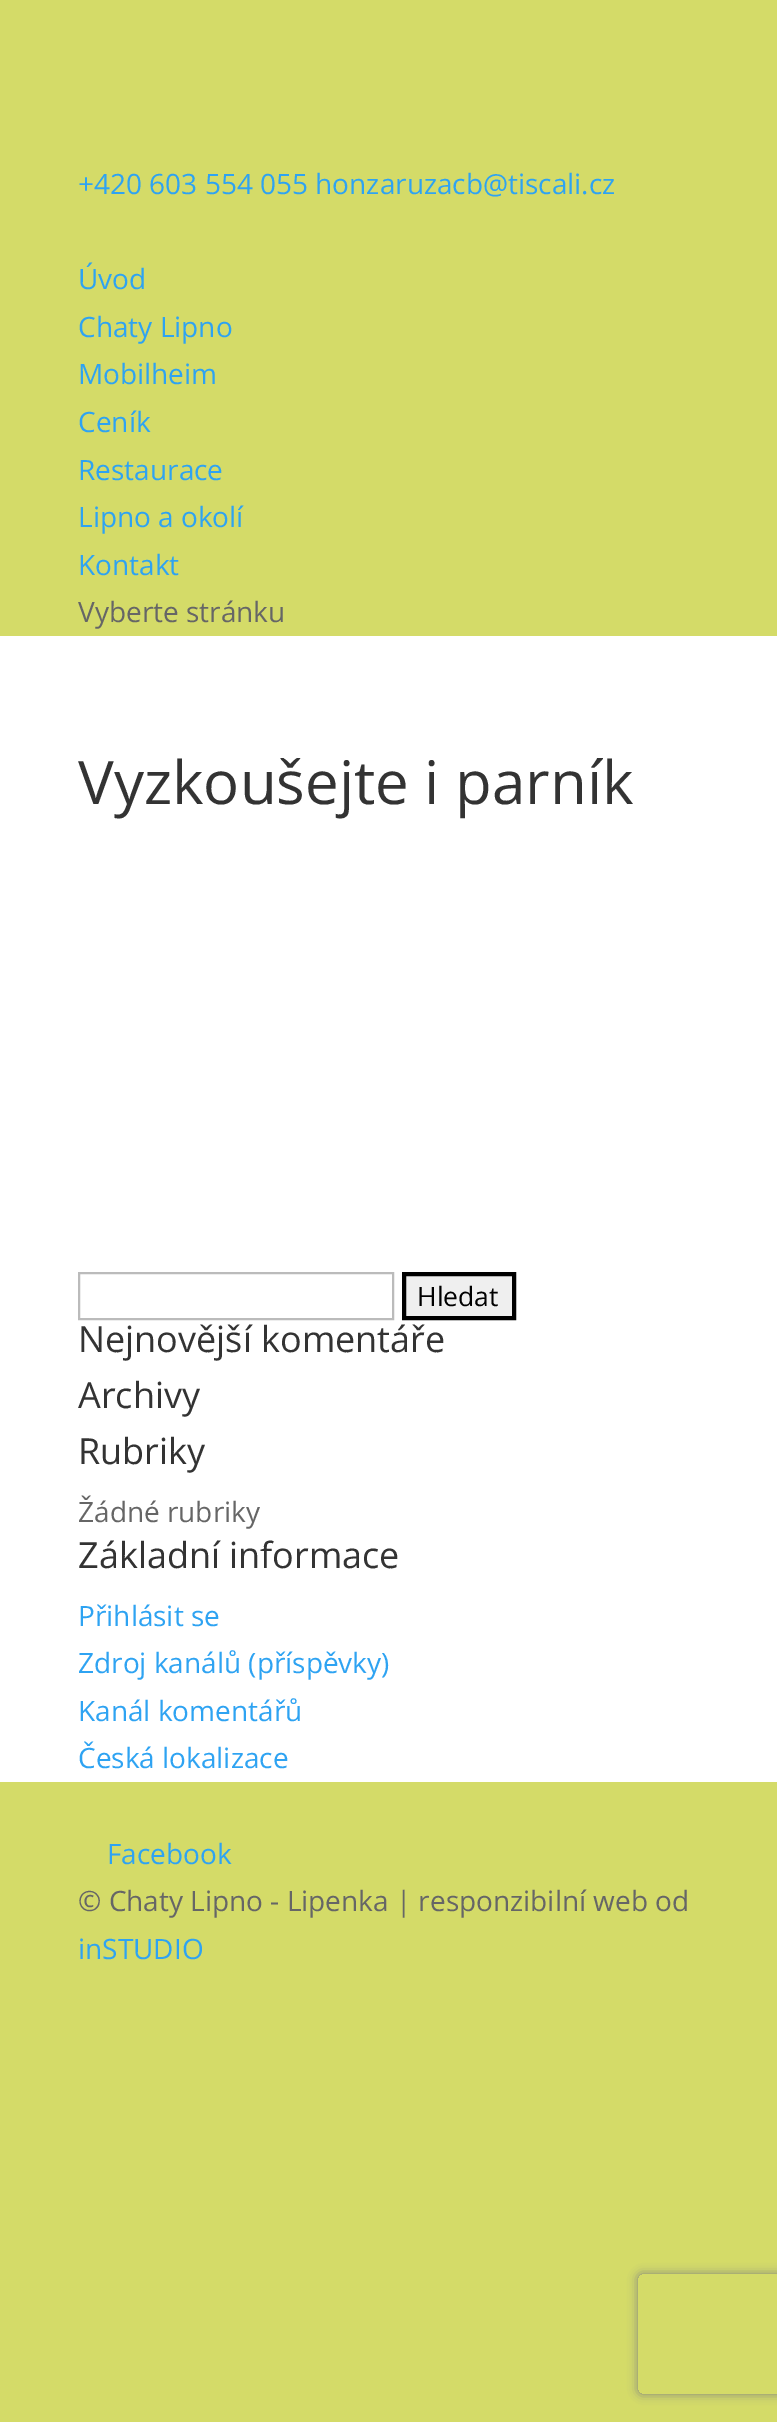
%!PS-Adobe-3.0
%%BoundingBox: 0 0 777 2422
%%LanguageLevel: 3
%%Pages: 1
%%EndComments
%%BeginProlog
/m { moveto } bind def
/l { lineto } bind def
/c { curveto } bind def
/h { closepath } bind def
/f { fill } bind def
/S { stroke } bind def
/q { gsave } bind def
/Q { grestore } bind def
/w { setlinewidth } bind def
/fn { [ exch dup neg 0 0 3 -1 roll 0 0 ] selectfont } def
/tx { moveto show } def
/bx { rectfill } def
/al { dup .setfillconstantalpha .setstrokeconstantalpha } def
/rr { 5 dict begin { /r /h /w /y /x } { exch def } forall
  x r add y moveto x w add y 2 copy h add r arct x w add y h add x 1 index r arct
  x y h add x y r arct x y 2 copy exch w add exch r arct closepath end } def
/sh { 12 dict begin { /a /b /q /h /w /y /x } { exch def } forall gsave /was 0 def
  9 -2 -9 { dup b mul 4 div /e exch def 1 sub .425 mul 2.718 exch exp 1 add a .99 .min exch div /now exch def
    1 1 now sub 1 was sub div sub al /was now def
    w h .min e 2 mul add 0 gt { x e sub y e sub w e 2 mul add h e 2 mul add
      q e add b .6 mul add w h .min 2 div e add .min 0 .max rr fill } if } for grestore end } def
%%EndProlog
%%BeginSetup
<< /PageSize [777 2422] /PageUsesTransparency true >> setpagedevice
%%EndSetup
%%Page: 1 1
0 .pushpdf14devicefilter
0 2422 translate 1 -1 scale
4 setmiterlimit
0.831 0.859 0.408 setrgbcolor
0 0 777 2422 bx
/OpenSans-Regular 28 fn
0.18 0.639 0.949 setrgbcolor
(+420 603 554 055 honzaruzacb@tiscali.cz) 78 194 tx
(Úvod) 78 289 tx
(Chaty Lipno) 78 337 tx
(Mobilheim) 78 384 tx
(Ceník) 78 432 tx
(Restaurace) 78 480 tx
(Lipno a okolí) 78 527 tx
(Kontakt) 78 575 tx
0.4 setgray
(Vyberte stránku) 78 622 tx
1 setgray
0 636 777 1146 bx
/OpenSans-Regular 60 fn
0.2 setgray
(Vyzkoušejte i parník) 78 804 tx
0.733 setgray
2 w
79 1273 314 46 rectstroke
0.937 setgray
404 1274 m 514 1274 l 514 1318 l 404 1318 l h q f Q
0 setgray
4 w
S
/OpenSans-Regular 26.5 fn
(Hledat) 417 1306 tx
/OpenSans-Regular 36 fn
0.2 setgray
(Nejnovější komentáře) 78 1352 tx
(Archivy) 78 1408 tx
(Rubriky) 78 1464 tx
/OpenSans-Regular 28 fn
0.4 setgray
(Žádné rubriky) 78 1522 tx
/OpenSans-Regular 36 fn
0.2 setgray
(Základní informace) 78 1568 tx
/OpenSans-Regular 28 fn
0.18 0.639 0.949 setrgbcolor
(Přihlásit se) 78 1626 tx
(Zdroj kanálů \(příspěvky\)) 78 1673 tx
(Kanál komentářů) 78 1721 tx
(Česká lokalizace) 78 1768 tx
(Facebook) 107 1864 tx
0.4 setgray
(© Chaty Lipno - Lipenka | responzibilní web od) 78 1911 tx
0.18 0.639 0.949 setrgbcolor
(inSTUDIO) 78 1959 tx
q
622 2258 m 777 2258 l 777 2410 l 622 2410 l h 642 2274 m 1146 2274 l 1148 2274 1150 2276 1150 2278 c 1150 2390 l 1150 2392 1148 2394 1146 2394 c 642 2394 l 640 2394 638 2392 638 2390 c 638 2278 l 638 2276 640 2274 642 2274 c h eoclip newpath
0.502 setgray
638 2274 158 120 4 5 1 sh
Q
.poppdf14devicefilter showpage
%%EOF
